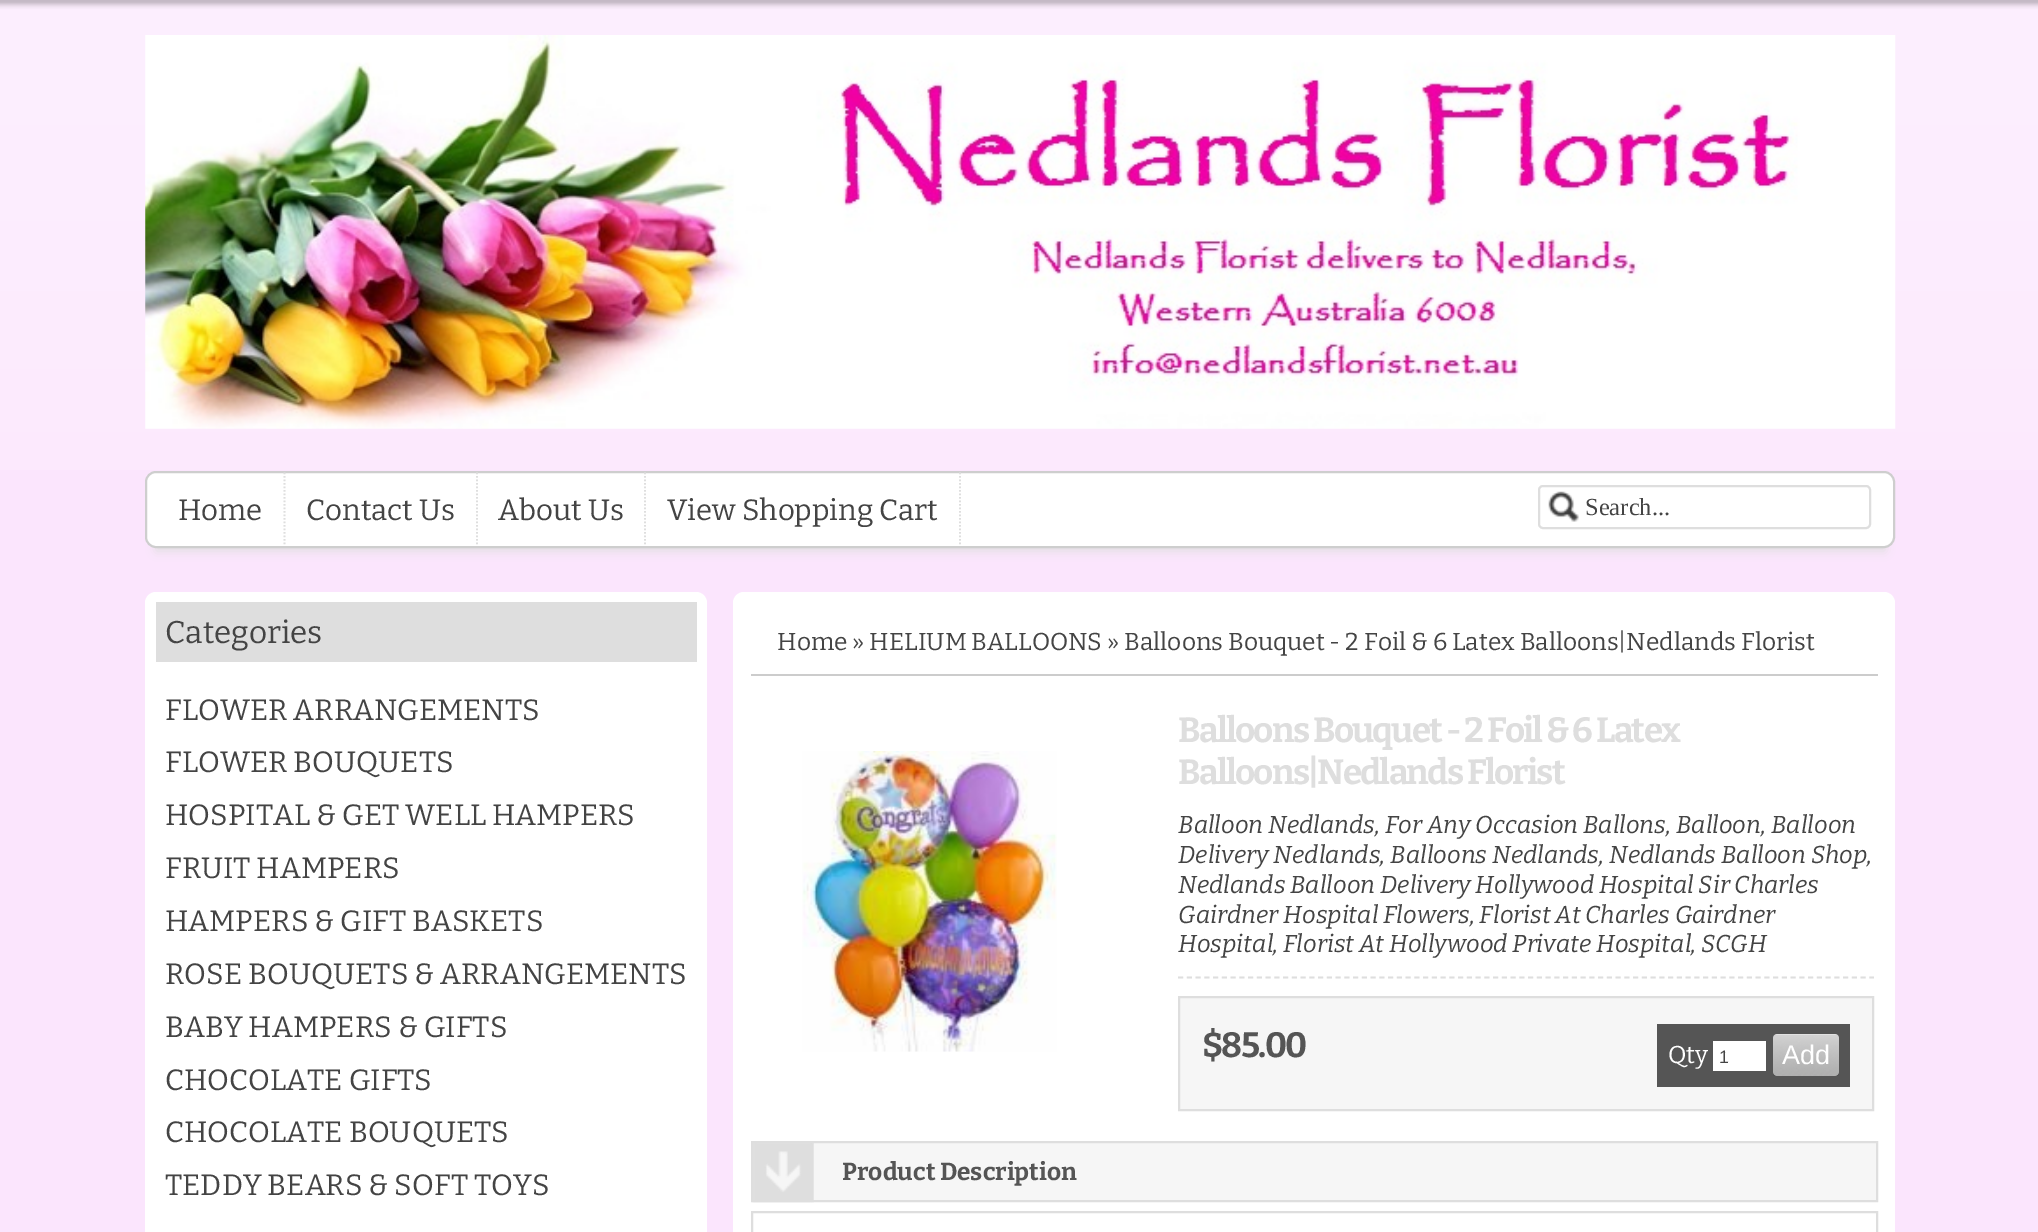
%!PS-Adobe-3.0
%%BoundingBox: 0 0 2038 1232
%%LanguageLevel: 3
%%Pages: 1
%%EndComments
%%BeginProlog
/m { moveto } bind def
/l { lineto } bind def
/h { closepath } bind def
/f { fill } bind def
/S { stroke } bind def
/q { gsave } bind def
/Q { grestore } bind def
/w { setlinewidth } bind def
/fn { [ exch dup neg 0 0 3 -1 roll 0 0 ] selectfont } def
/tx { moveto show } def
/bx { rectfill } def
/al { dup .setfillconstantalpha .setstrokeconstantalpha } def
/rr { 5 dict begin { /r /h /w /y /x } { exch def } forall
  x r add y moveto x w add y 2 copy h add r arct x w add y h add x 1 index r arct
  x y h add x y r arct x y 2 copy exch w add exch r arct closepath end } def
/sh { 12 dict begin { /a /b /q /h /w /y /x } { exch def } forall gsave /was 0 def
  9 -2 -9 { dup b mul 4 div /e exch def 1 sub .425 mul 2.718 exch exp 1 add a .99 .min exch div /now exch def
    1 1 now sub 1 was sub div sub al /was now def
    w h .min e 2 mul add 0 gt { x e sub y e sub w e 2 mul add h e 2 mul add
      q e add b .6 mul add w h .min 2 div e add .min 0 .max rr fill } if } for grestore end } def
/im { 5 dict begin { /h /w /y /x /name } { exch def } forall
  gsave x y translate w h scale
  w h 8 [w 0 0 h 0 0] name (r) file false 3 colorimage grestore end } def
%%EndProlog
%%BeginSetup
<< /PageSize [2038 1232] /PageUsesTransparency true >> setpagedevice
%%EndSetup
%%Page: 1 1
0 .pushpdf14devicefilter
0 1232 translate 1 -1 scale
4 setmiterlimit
0.984 0.898 0.992 setrgbcolor
0 0 2038 1232 bx
(image0.raw) 0 0 2038 470 im
(image1.raw) 145 35 1751 394 im
0.871 setgray
156 495 1729 56 0 5 1 sh
1 setgray
146 472 1748 75 10 rr q f Q
0.808 setgray
2 w
S
0.871 setgray
1.8 w
[1.75 1.75] 0 setdash
284.5 472.5 m 284.5 546 l S
/Bitter-Regular 29.4 fn
0.267 setgray
(Home) 178 520 tx
0.871 setgray
477 472.5 m 477 546 l S
0.267 setgray
(Contact Us) 306 520 tx
0.871 setgray
645 472.5 m 645 546 l S
0.267 setgray
(About Us) 498 520 tx
0.871 setgray
960 472.5 m 960 546 l S
0.267 setgray
(View Shopping Cart) 667 520 tx
(image2.raw) 1548 491 31 31 im
0.871 setgray
2 w
[] 0 setdash
1539 486 331 42 4 rr S
/LiberationSerif-Regular 24.5 fn
0.267 setgray
(Search...) 1585 515 tx
1 setgray
145 592 562 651 11 rr f
0.871 setgray
156 602 541 60 bx
/Bitter-Regular 31.5 fn
0.267 setgray
(Categories) 165 643 tx
/Bitter-Regular 29.4 fn
(FLOWER ARRANGEMENTS) 165 720 tx
(FLOWER BOUQUETS) 165 772 tx
(HOSPITAL & GET WELL HAMPERS) 165 825 tx
(FRUIT HAMPERS) 165 878 tx
(HAMPERS & GIFT BASKETS) 165 931 tx
(ROSE BOUQUETS & ARRANGEMENTS) 165 984 tx
(BABY HAMPERS & GIFTS) 165 1037 tx
(CHOCOLATE GIFTS) 165 1090 tx
(CHOCOLATE BOUQUETS) 165 1142 tx
(TEDDY BEARS & SOFT TOYS) 165 1195 tx
1 setgray
733 592 1162 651 11 rr f
0.8 setgray
751 674 1127 2 bx
/Bitter-Regular 24.5 fn
0.267 setgray
(Home » HELIUM BALLOONS » Balloons Bouquet - 2 Foil & 6 Latex Balloons|Nedlands Florist) 777 650 tx
(image3.raw) 802 751 255 301 im
/Bitter-Bold 35 fn
0.871 setgray
1178 742 m -1.75 0 (Balloons Bouquet - 2 Foil & 6 Latex) ashow
1178 784 m -1.75 0 (Balloons|Nedlands Florist) ashow
1.8 w
[5.25 3.5] 0 setdash
1178 977.5 m 1874 977.5 l S
/Bitter-ThinItalic 24.5 fn
0.267 setgray
(Balloon Nedlands, For Any Occasion Ballons, Balloon, Balloon) 1178 833 tx
(Delivery Nedlands, Balloons Nedlands, Nedlands Balloon Shop,) 1178 863 tx
(Nedlands Balloon Delivery Hollywood Hospital Sir Charles) 1178 893 tx
(Gairdner Hospital Flowers, Florist At Charles Gairdner) 1178 923 tx
(Hospital, Florist At Hollywood Private Hospital, SCGH) 1178 952 tx
0.965 setgray
1179 997 m 1873 997 l 1873 1110 l 1179 1110 l h q f Q
0.871 setgray
2 w
[] 0 setdash
S
/Bitter-Bold 35 fn
0.333 setgray
1202 1057 m -1.75 0 ($85.00) ashow
1657 1024 193 63 bx
/Bitter-Regular 24.5 fn
1 setgray
(Qty) 1668 1063 tx
1713 1041 53 30 bx
/LiberationSans-Regular 18 fn
0.267 setgray
(1) 1719 1063 tx
0.957 setgray
1773 1034 66 42 4 rr f
(image4.raw) 1773 1034 66 42 im
/LiberationSans-Regular 27 fn
1 setgray
(Add) 1782 1064 tx
0.965 setgray
753 1143 1123 57 bx
(image5.raw) 752 1143 62 60 im
0.871 setgray
752 1142 1125 59 rectstroke
/Bitter-Bold 24.5 fn
0.333 setgray
(Product Description) 842 1180 tx
0.871 setgray
752 1212 1125 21 rectstroke
.poppdf14devicefilter showpage
%%EOF
